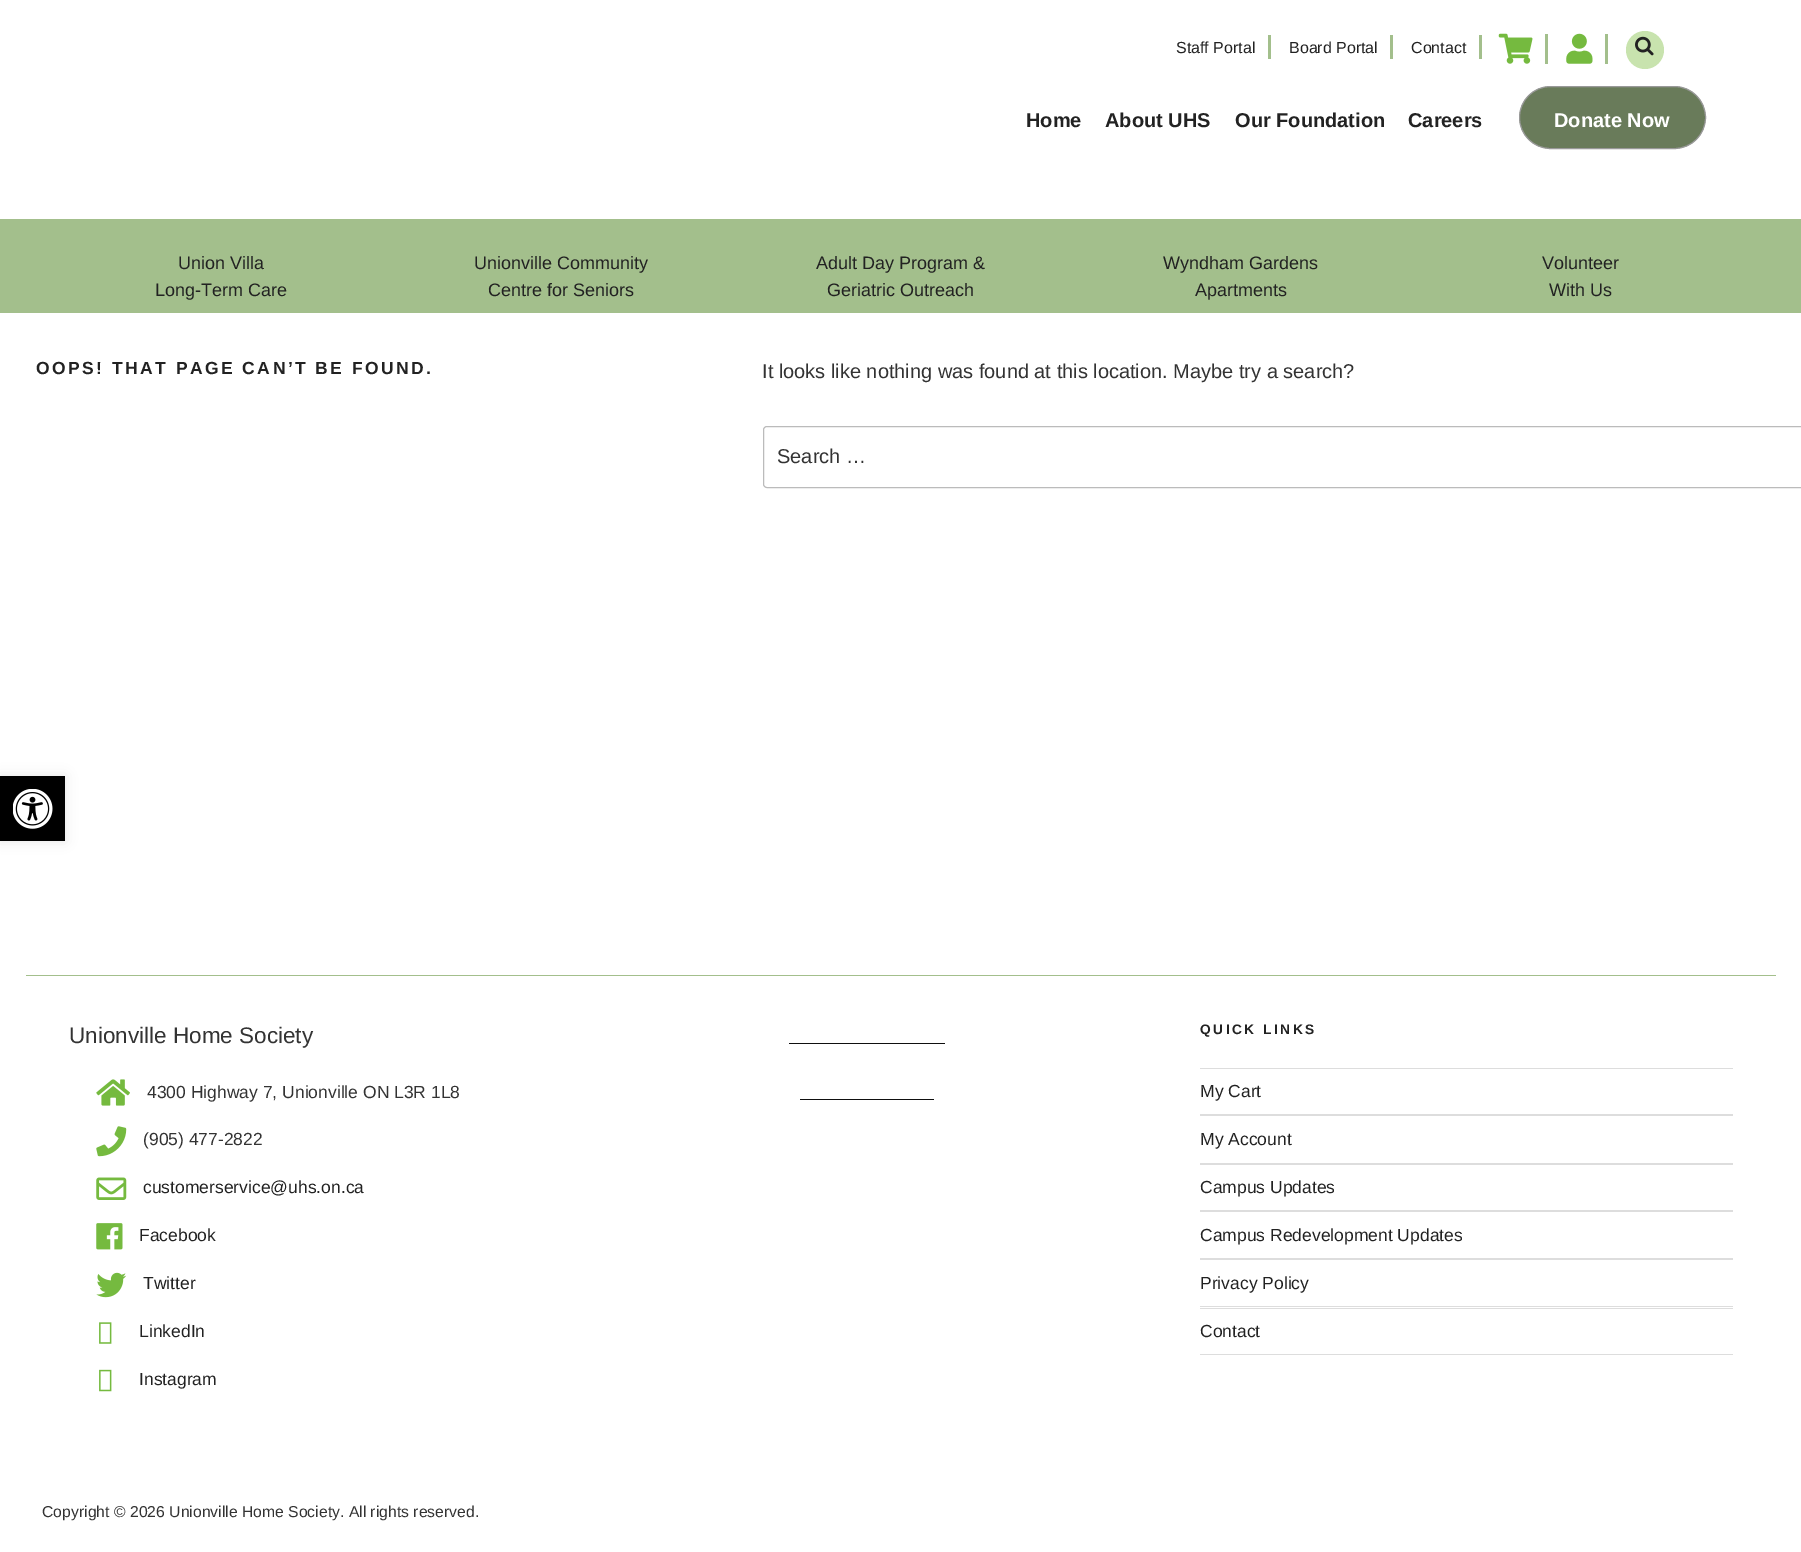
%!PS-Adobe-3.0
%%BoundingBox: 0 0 1801 1552
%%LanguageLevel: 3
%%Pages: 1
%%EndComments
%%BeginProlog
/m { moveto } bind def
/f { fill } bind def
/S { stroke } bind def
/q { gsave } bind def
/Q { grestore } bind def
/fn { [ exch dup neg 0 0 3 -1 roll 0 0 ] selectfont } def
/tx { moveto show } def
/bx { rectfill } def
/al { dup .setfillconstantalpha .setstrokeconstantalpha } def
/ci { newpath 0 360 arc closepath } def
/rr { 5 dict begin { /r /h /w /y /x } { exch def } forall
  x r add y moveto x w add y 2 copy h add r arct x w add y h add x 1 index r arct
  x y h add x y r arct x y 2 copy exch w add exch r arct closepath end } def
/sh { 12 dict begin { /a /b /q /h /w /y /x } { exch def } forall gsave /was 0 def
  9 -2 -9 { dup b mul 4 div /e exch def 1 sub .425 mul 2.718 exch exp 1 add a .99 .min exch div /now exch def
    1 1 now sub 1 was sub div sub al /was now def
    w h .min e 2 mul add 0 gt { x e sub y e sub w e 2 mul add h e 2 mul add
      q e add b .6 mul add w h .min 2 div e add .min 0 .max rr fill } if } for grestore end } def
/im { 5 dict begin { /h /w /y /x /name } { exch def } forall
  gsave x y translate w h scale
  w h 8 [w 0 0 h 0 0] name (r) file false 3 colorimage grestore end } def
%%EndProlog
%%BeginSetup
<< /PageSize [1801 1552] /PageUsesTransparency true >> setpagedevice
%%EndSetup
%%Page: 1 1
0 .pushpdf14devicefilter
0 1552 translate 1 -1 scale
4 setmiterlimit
1 setgray
0 0 1801 1552 bx
0.639 0.749 0.549 setrgbcolor
1268 35 3 24 bx
/LiberationSans-Regular 16 fn
0.133 setgray
(Staff Portal) 1176 53 tx
0.639 0.749 0.549 setrgbcolor
1390 35 3 24 bx
0.133 setgray
(Board Portal) 1289 53 tx
0.639 0.749 0.549 setrgbcolor
1479 35 3 24 bx
0.133 setgray
(Contact) 1411 53 tx
0.639 0.749 0.549 setrgbcolor
1545 34 3 30 bx
(image0.raw) 1498 33 35 31 im
1605 34 3 30 bx
(image1.raw) 1566 33 27 31 im
0.784 0.89 0.682 setrgbcolor
1645 50 19 ci f
(image2.raw) 1635 36 19 20 im
/LiberationSans-Bold 20 fn
0.133 setgray
(Home) 1026 127 tx
(About UHS) 1105 127 tx
(Our Foundation) 1235 127 tx
(Careers) 1408 127 tx
0.412 0.482 0.353 setrgbcolor
1519.5 86.5 186 62 31 rr q f Q
0.6 setgray
S
1 setgray
(Donate Now) 1554 127 tx
0.639 0.749 0.549 setrgbcolor
0 219 1801 94 bx
/LiberationSans-Regular 18 fn
0.133 setgray
(Union Villa) 178 269 tx
(Long-Term Care) 155 296 tx
(Unionville Community) 474 269 tx
(Centre for Seniors) 488 296 tx
(Adult Day Program &) 816 269 tx
(Geriatric Outreach) 827 296 tx
(Wyndham Gardens) 1163 269 tx
(Apartments) 1195 296 tx
(Volunteer) 1542 269 tx
(With Us) 1549 296 tx
/LiberationSans-Bold 17.5 fn
36 374 m 2.45 0 (OOPS! THAT PAGE CAN’T BE FOUND.) ashow
/LiberationSans-Regular 20 fn
0.2 setgray
(It looks like nothing was found at this location. Maybe try a search?) 762 378 tx
0.733 setgray
763.5 426.5 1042 61 3.5 rr S
0.2 setgray
(Search …) 777 463 tx
0.639 0.749 0.549 setrgbcolor
26 975 1750 1 bx
/LiberationSans-Regular 22.5 fn
0.2 setgray
(Unionville Home Society) 69 1043 tx
(image3.raw) 96 1079 34 27 im
/LiberationSans-Regular 17.5 fn
(4300 Highway 7, Unionville ON L3R 1L8) 147 1098 tx
(image4.raw) 96 1126 31 31 im
(\(905\) 477-2822) 143 1145 tx
(image5.raw) 96 1177 31 23 im
0.133 setgray
(customerservice@uhs.on.ca) 143 1193 tx
(image6.raw) 96 1223 27 27 im
(Facebook) 139 1241 tx
(image7.raw) 96 1272 31 26 im
(Twitter) 143 1289 tx
(image8.raw) 99 1322 13 22 im
(LinkedIn) 139 1337 tx
(image9.raw) 99 1369 13 23 im
(Instagram) 139 1385 tx
0.059 setgray
789 1043 156 1 bx
800 1099 134 1 bx
/LiberationSans-Bold 13.75 fn
0.133 setgray
1200 1034 m 2.5 0 (QUICK LINKS) ashow
0.867 setgray
1200 1068 533 1 bx
1200 1114 533 2 bx
/LiberationSans-Regular 17.5 fn
0.133 setgray
(My Cart) 1200 1097 tx
0.867 setgray
1200 1163 533 2 bx
0.133 setgray
(My Account) 1200 1145 tx
0.867 setgray
1200 1210 533 2 bx
0.133 setgray
(Campus Updates) 1200 1193 tx
0.867 setgray
1200 1258 533 2 bx
0.133 setgray
(Campus Redevelopment Updates) 1200 1241 tx
0.867 setgray
1200 1306 533 1 bx
0.133 setgray
(Privacy Policy) 1200 1289 tx
0.867 setgray
1200 1308 533 1 bx
1200 1354 533 1 bx
0.133 setgray
(Contact) 1200 1337 tx
/LiberationSans-Regular 15.75 fn
0.2 setgray
(Copyright © 2026 Unionville Home Society. All rights reserved.) 42 1517 tx
0 setgray
0 776 65 65 0 6 0.1 sh
0 776 65 65 bx
(image10.raw) 13 789 40 40 im
.poppdf14devicefilter showpage
%%EOF
